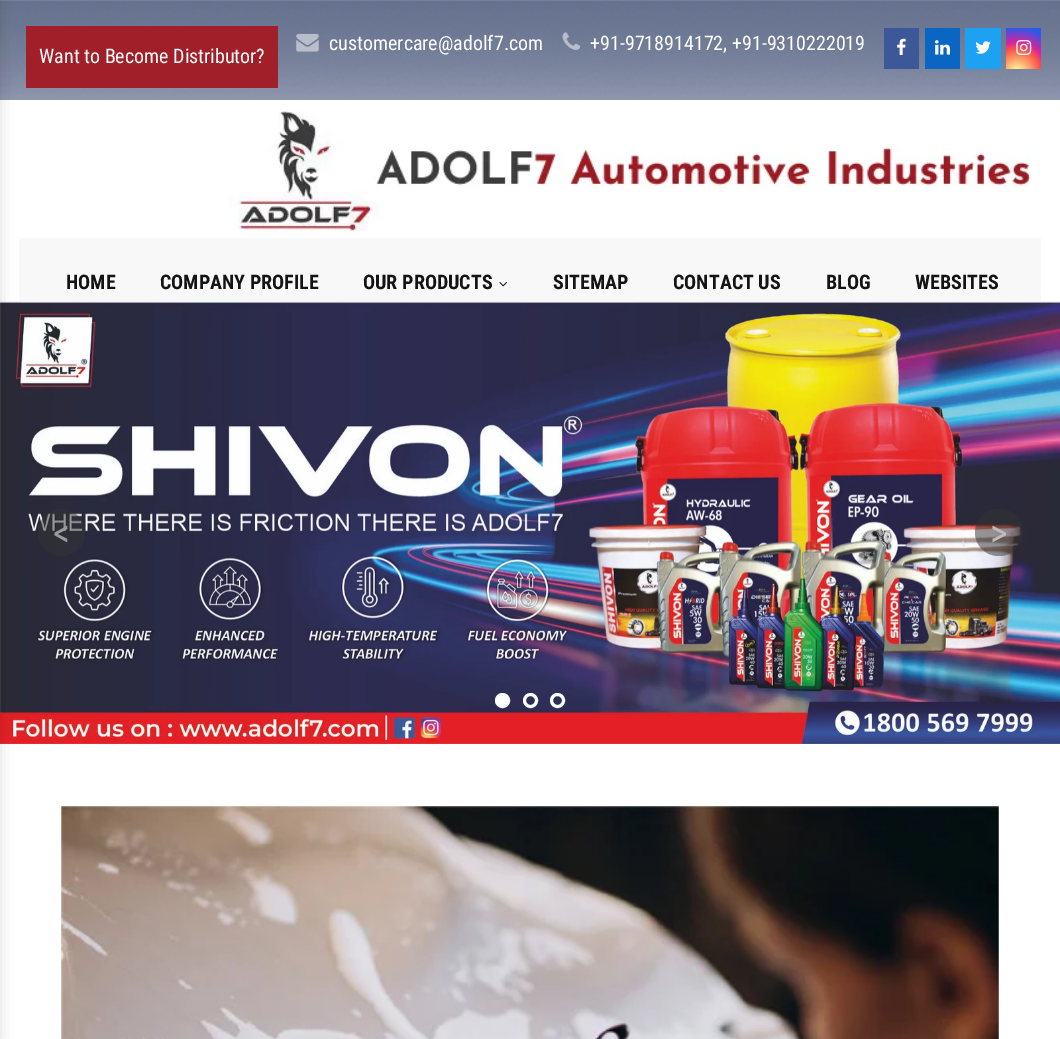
%!PS-Adobe-3.0
%%BoundingBox: 0 0 1060 1039
%%LanguageLevel: 3
%%Pages: 1
%%EndComments
%%BeginProlog
/m { moveto } bind def
/l { lineto } bind def
/h { closepath } bind def
/f { fill } bind def
/S { stroke } bind def
/q { gsave } bind def
/Q { grestore } bind def
/w { setlinewidth } bind def
/fn { [ exch dup neg 0 0 3 -1 roll 0 0 ] selectfont } def
/tx { moveto show } def
/bx { rectfill } def
/al { dup .setfillconstantalpha .setstrokeconstantalpha } def
/ci { newpath 0 360 arc closepath } def
/rr { 5 dict begin { /r /h /w /y /x } { exch def } forall
  x r add y moveto x w add y 2 copy h add r arct x w add y h add x 1 index r arct
  x y h add x y r arct x y 2 copy exch w add exch r arct closepath end } def
/sh { 12 dict begin { /a /b /q /h /w /y /x } { exch def } forall gsave /was 0 def
  9 -2 -9 { dup b mul 4 div /e exch def 1 sub .425 mul 2.718 exch exp 1 add a .99 .min exch div /now exch def
    1 1 now sub 1 was sub div sub al /was now def
    w h .min e 2 mul add 0 gt { x e sub y e sub w e 2 mul add h e 2 mul add
      q e add b .6 mul add w h .min 2 div e add .min 0 .max rr fill } if } for grestore end } def
/im { 5 dict begin { /h /w /y /x /name } { exch def } forall
  gsave x y translate w h scale
  w h 8 [w 0 0 h 0 0] name (r) file false 3 colorimage grestore end } def
%%EndProlog
%%BeginSetup
<< /PageSize [1060 1039] /PageUsesTransparency true >> setpagedevice
%%EndSetup
%%Page: 1 1
0 .pushpdf14devicefilter
0 1039 translate 1 -1 scale
4 setmiterlimit
1 setgray
0 0 1060 1039 bx
(image0.raw) 0 0 1060 100 im
0.973 setgray
19 238 1022 63 bx
(image9.raw) 0 301 1060 443 im
0 setgray
-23 0 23 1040 0 7.5 0.14 sh
(image1.raw) 296 33 23 19 im
/RobotoCondensed-Regular 20 fn
1 setgray
(customercare@adolf7.com) 329 50 tx
(image2.raw) 562 32 19 18 im
(+91-9718914172, +91-9310222019) 590 50 tx
0.235 0.345 0.6 setrgbcolor
884 28 35 41 bx
(image3.raw) 897 38 9 17 im
0.039 0.4 0.761 setrgbcolor
925 28 35 41 bx
(image4.raw) 935 40 15 15 im
0.114 0.631 0.949 setrgbcolor
965 28 36 41 bx
(image5.raw) 975 41 16 13 im
q 1006 28 m 1041 28 l 1041 69 l 1006 69 l h clip newpath 1017 72 translate 50 50 scale
<< /ShadingType 3 /ColorSpace /DeviceRGB /Coords [0 0 0 0 0 1] /Extend [true true] /Function << /FunctionType 3 /Domain [0 1] /Functions [<< /FunctionType 2 /Domain [0 1] /C0 [0.992 0.957 0.592] /C1 [0.992 0.957 0.592] /N 1 >> << /FunctionType 2 /Domain [0 1] /C0 [0.992 0.957 0.592] /C1 [0.992 0.349 0.286] /N 1 >> << /FunctionType 2 /Domain [0 1] /C0 [0.992 0.349 0.286] /C1 [0.839 0.141 0.624] /N 1 >> << /FunctionType 2 /Domain [0 1] /C0 [0.839 0.141 0.624] /C1 [0.157 0.353 0.922] /N 1 >> << /FunctionType 2 /Domain [0 1] /C0 [0.157 0.353 0.922] /C1 [0.157 0.353 0.922] /N 1 >>] /Bounds [0.05 0.45 0.6 0.9] /Encode [0 1 0 1 0 1 0 1 0 1] >> >> shfill Q
(image6.raw) 1016 40 16 15 im
0.631 0.122 0.157 setrgbcolor
26 26 252 62 bx
1 setgray
(Want to Become Distributor?) 39 63 tx
(image7.raw) 229 111 802 121 im
/RobotoCondensed-Bold 20 fn
0.078 setgray
(HOME) 66 289 tx
(COMPANY PROFILE) 160 289 tx
(OUR PRODUCTS) 363 289 tx
(image8.raw) 499 282 8 5 im
(SITEMAP) 553 289 tx
(CONTACT US) 673 289 tx
(BLOG) 826 289 tx
(WEBSITES) 915 289 tx
0.5 al
0.2 setgray
61.5 532.5 23.5 ci f
/RobotoCondensed-Regular 38 fn
1 al
0.608 0.608 0.624 setrgbcolor
(<) 53 546 tx
0.5 al
0.2 setgray
975 509 48 47 23.5 rr f
1 al
0.757 0.729 0.729 setrgbcolor
(>) 990 546 tx
1 setgray
502.5 700.5 6 ci q f Q
3 w
S
530.5 700.5 6 ci S
557.5 700.5 6 ci S
(image10.raw) 61 806 938 233 im
.poppdf14devicefilter showpage
%%EOF
